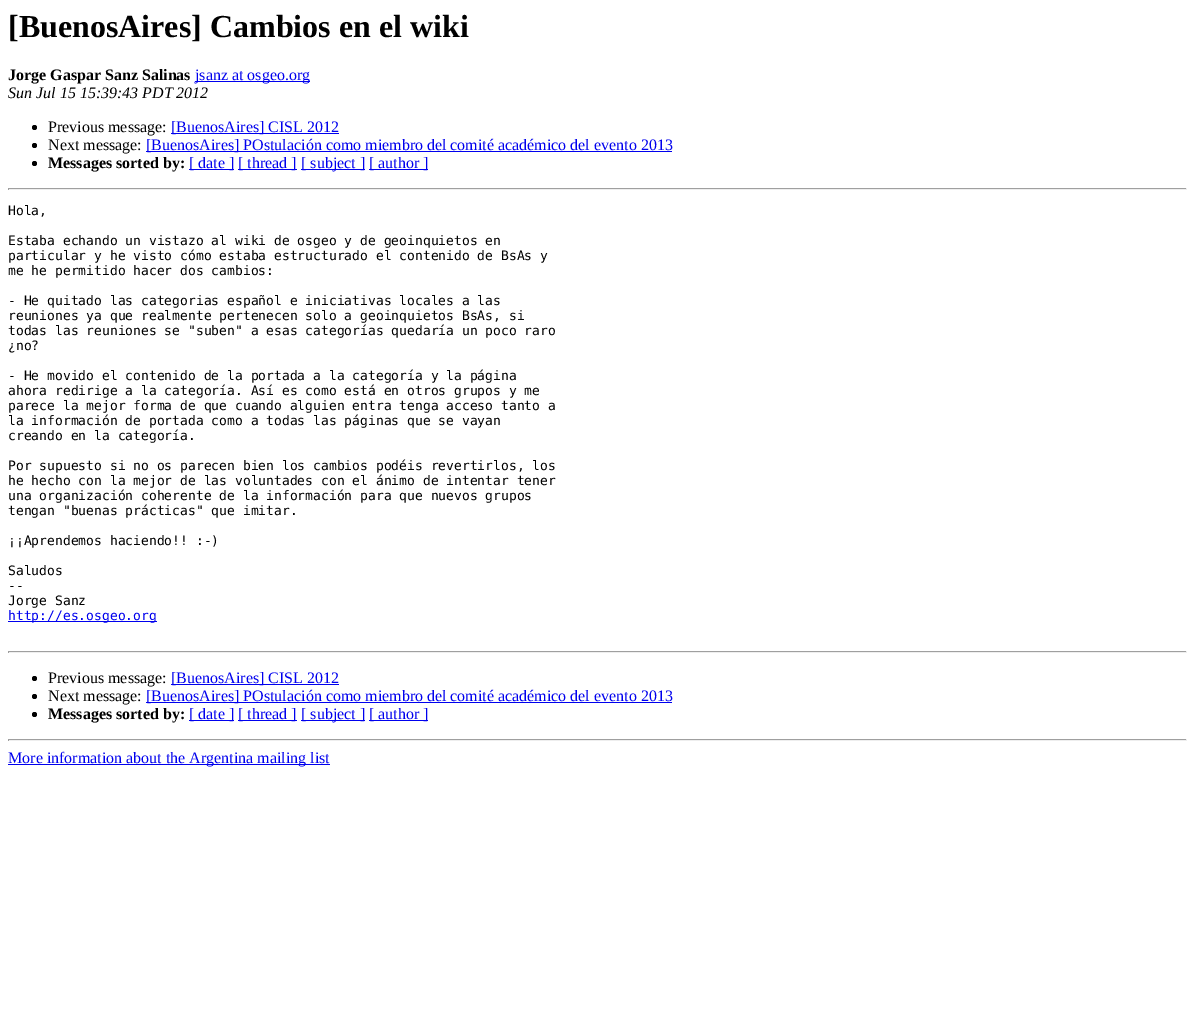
%!PS-Adobe-3.0
%%BoundingBox: 0 0 1195 1019
%%LanguageLevel: 3
%%Pages: 1
%%EndComments
%%BeginProlog
/f { fill } bind def
/fn { [ exch dup neg 0 0 3 -1 roll 0 0 ] selectfont } def
/tx { moveto show } def
/bx { rectfill } def
/ci { newpath 0 360 arc closepath } def
%%EndProlog
%%BeginSetup
<< /PageSize [1195 1019] >> setpagedevice
%%EndSetup
%%Page: 1 1
0 1019 translate 1 -1 scale
4 setmiterlimit
1 setgray
0 0 1195 1019 bx
/LiberationSerif-Bold 32 fn
0 setgray
([BuenosAires] Cambios en el wiki) 8 37 tx
/LiberationSerif-Bold 16 fn
(Jorge Gaspar Sanz Salinas) 8 80 tx
0 0 0.933 setrgbcolor
195 81 115 1 bx
/LiberationSerif-Regular 16 fn
(jsanz at osgeo.org) 195 80 tx
/LiberationSerif-Italic 16 fn
0 setgray
(Sun Jul 15 15:39:43 PDT 2012) 8 98 tx
34.5 127.5 2.5 ci f
/LiberationSerif-Regular 16 fn
(Previous message:) 48 132 tx
0 0 0.933 setrgbcolor
171 133 168 1 bx
([BuenosAires] CISL 2012) 171 132 tx
0 setgray
34.5 145.5 2.5 ci f
(Next message:) 48 150 tx
0 0 0.933 setrgbcolor
146 151 526 1 bx
([BuenosAires] POstulación como miembro del comité académico del evento 2013) 146 150 tx
0 setgray
34.5 163.5 2.5 ci f
/LiberationSerif-Bold 16 fn
(Messages sorted by:) 48 168 tx
0 0 0.933 setrgbcolor
189 169 45 1 bx
/LiberationSerif-Regular 16 fn
([ date ]) 189 168 tx
238 169 59 1 bx
([ thread ]) 238 168 tx
301 169 64 1 bx
([ subject ]) 301 168 tx
369 169 59 1 bx
([ author ]) 369 168 tx
0.624 setgray
8 188 1179 1 bx
0.933 setgray
1186 188 1 2 bx
8 189 1179 1 bx
0.624 setgray
8 188 1 2 bx
/DejaVuSansMono-Regular 13 fn
0 setgray
(Hola,) 8 215 tx
(Estaba echando un vistazo al wiki de osgeo y de geoinquietos en) 8 245 tx
(particular y he visto cómo estaba estructurado el contenido de BsAs y) 8 260 tx
(me he permitido hacer dos cambios:) 8 275 tx
(- He quitado las categorias español e iniciativas locales a las) 8 305 tx
(reuniones ya que realmente pertenecen solo a geoinquietos BsAs, si) 8 320 tx
(todas las reuniones se "suben" a esas categorías quedaría un poco raro) 8 335 tx
(¿no?) 8 350 tx
(- He movido el contenido de la portada a la categoría y la página) 8 380 tx
(ahora redirige a la categoría. Así es como está en otros grupos y me) 8 395 tx
(parece la mejor forma de que cuando alguien entra tenga acceso tanto a) 8 410 tx
(la información de portada como a todas las páginas que se vayan) 8 425 tx
(creando en la categoría.) 8 440 tx
(Por supuesto si no os parecen bien los cambios podéis revertirlos, los) 8 470 tx
(he hecho con la mejor de las voluntades con el ánimo de intentar tener) 8 485 tx
(una organización coherente de la información para que nuevos grupos) 8 500 tx
(tengan "buenas prácticas" que imitar.) 8 515 tx
(¡¡Aprendemos haciendo!! :-\)) 8 545 tx
(Saludos) 8 575 tx
(--) 8 590 tx
(Jorge Sanz) 8 605 tx
0 0 0.933 setrgbcolor
8 621 149 1 bx
(http://es.osgeo.org) 8 620 tx
0.624 setgray
8 651 1179 1 bx
0.933 setgray
1186 651 1 2 bx
8 652 1179 1 bx
0.624 setgray
8 651 1 2 bx
0 setgray
34.5 678.5 2.5 ci f
/LiberationSerif-Regular 16 fn
(Previous message:) 48 683 tx
0 0 0.933 setrgbcolor
171 684 168 1 bx
([BuenosAires] CISL 2012) 171 683 tx
0 setgray
34.5 696.5 2.5 ci f
(Next message:) 48 701 tx
0 0 0.933 setrgbcolor
146 702 526 1 bx
([BuenosAires] POstulación como miembro del comité académico del evento 2013) 146 701 tx
0 setgray
34.5 714.5 2.5 ci f
/LiberationSerif-Bold 16 fn
(Messages sorted by:) 48 719 tx
0 0 0.933 setrgbcolor
189 720 45 1 bx
/LiberationSerif-Regular 16 fn
([ date ]) 189 719 tx
238 720 59 1 bx
([ thread ]) 238 719 tx
301 720 64 1 bx
([ subject ]) 301 719 tx
369 720 59 1 bx
([ author ]) 369 719 tx
0.624 setgray
8 739 1179 1 bx
0.933 setgray
1186 739 1 2 bx
8 740 1179 1 bx
0.624 setgray
8 739 1 2 bx
0 0 0.933 setrgbcolor
8 764 322 1 bx
(More information about the Argentina mailing list) 8 763 tx
showpage
%%EOF
